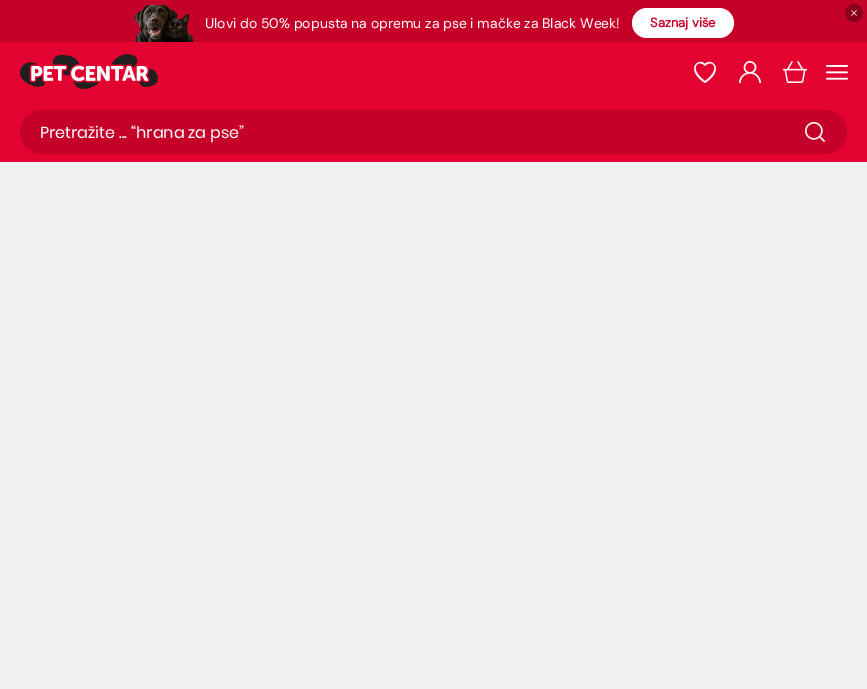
%!PS-Adobe-3.0
%%BoundingBox: 0 0 867 689
%%LanguageLevel: 3
%%Pages: 1
%%EndComments
%%BeginProlog
/m { moveto } bind def
/c { curveto } bind def
/h { closepath } bind def
/f { fill } bind def
/fn { [ exch dup neg 0 0 3 -1 roll 0 0 ] selectfont } def
/tx { moveto show } def
/bx { rectfill } def
/ci { newpath 0 360 arc closepath } def
/rr { 5 dict begin { /r /h /w /y /x } { exch def } forall
  x r add y moveto x w add y 2 copy h add r arct x w add y h add x 1 index r arct
  x y h add x y r arct x y 2 copy exch w add exch r arct closepath end } def
/im { 5 dict begin { /h /w /y /x /name } { exch def } forall
  gsave x y translate w h scale
  w h 8 [w 0 0 h 0 0] name (r) file false 3 colorimage grestore end } def
%%EndProlog
%%BeginSetup
<< /PageSize [867 689] >> setpagedevice
%%EndSetup
%%Page: 1 1
0 689 translate 1 -1 scale
4 setmiterlimit
0.941 setgray
0 0 867 689 bx
0.776 0.004 0.161 setrgbcolor
0 0 867 42 bx
0.545 0.004 0.114 setrgbcolor
854 13 9 ci f
(image0.raw) 851 10 6 6 im
(image1.raw) 134 4 59 38 im
/DMSans-Regular 14 fn
1 setgray
(Ulovi do 50% popusta na opremu za pse i mačke za Black Week!) 205 28 tx
632 8 102 30 15 rr f
/DMSans-Bold 13 fn
0.776 0.004 0.161 setrgbcolor
(Saznaj više) 650 27 tx
0.89 0.012 0.188 setrgbcolor
0 42 867 120 bx
(image2.raw) 20 54 138 35 im
1 setgray
705 66 m 698 58 688 69 705 81 c 722 69 712 58 705 66 c h 705 83 m 684 69 699 57 705 64 c 711 57 726 69 705 83 c h f
(image3.raw) 739 61 22 22 im
(image4.raw) 783 61 24 22 im
(image5.raw) 826 65 22 15 im
0.776 0.004 0.161 setrgbcolor
20 110 827 44 22 rr f
/Poppins-Regular 16 fn
1 setgray
(Pretražite ... “hrana za pse”) 40 138 tx
(image6.raw) 805 122 20 20 im
showpage
%%EOF
